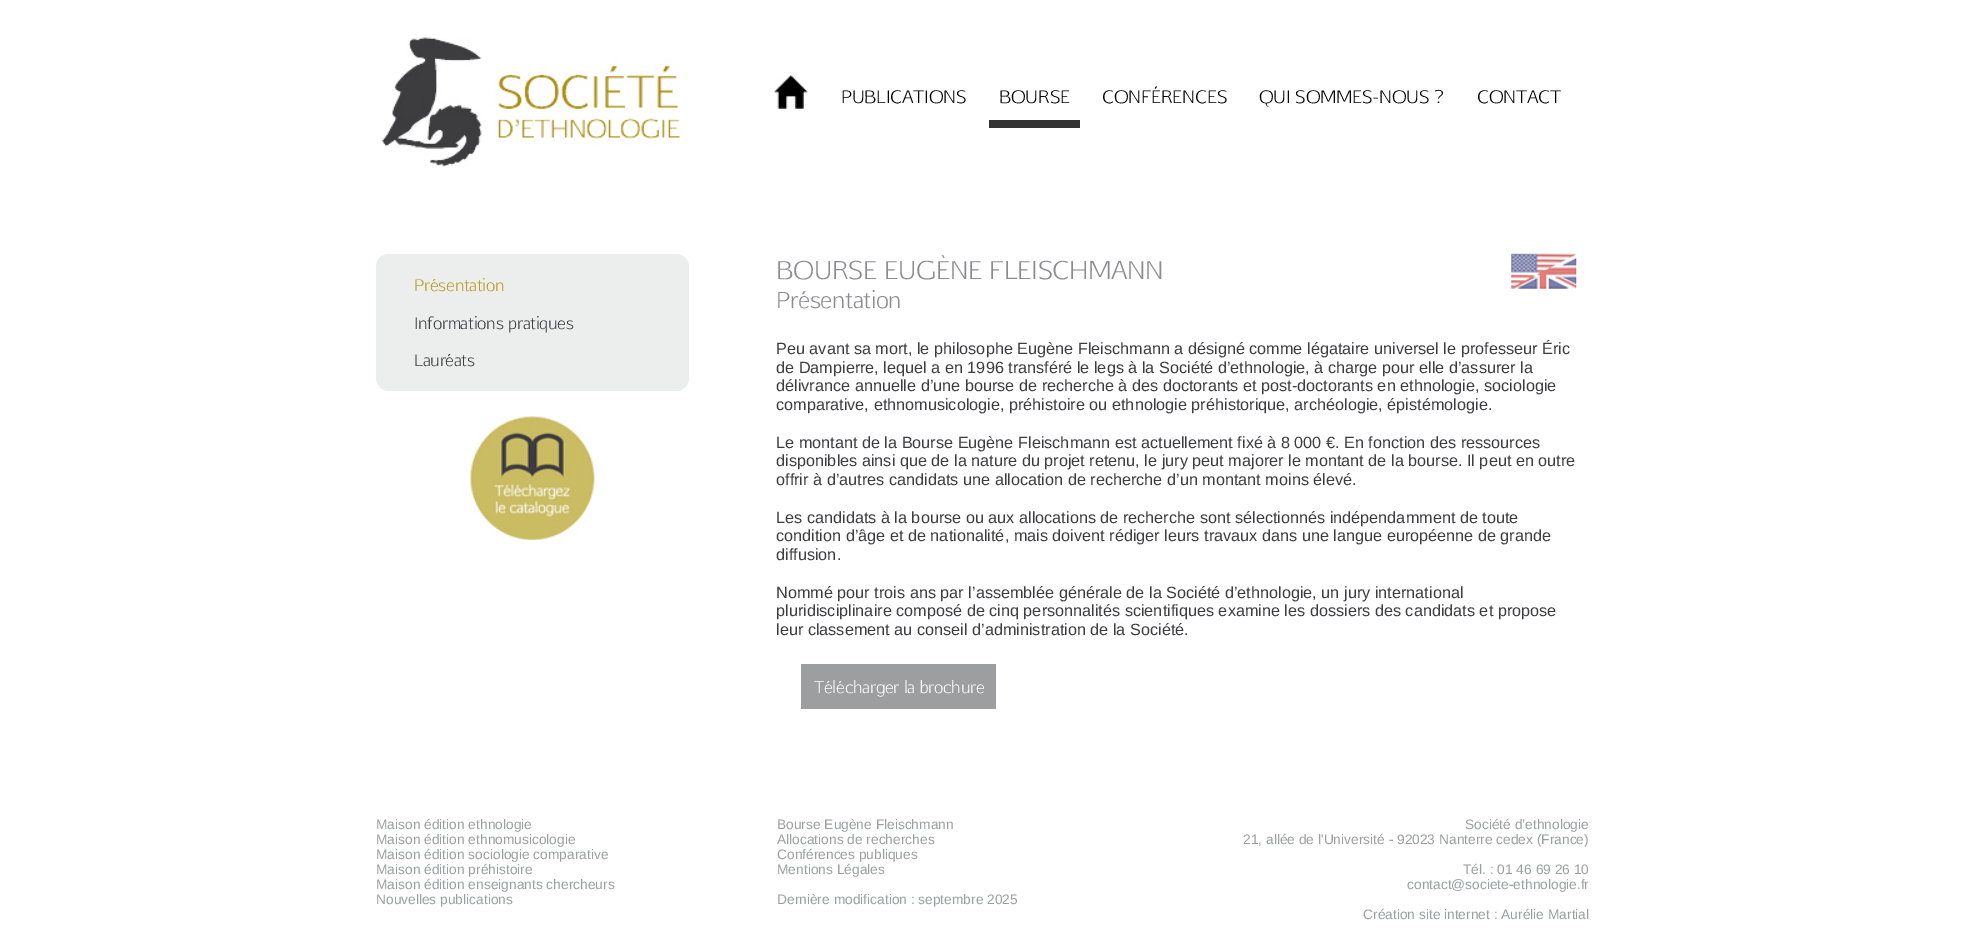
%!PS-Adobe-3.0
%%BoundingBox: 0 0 1964 950
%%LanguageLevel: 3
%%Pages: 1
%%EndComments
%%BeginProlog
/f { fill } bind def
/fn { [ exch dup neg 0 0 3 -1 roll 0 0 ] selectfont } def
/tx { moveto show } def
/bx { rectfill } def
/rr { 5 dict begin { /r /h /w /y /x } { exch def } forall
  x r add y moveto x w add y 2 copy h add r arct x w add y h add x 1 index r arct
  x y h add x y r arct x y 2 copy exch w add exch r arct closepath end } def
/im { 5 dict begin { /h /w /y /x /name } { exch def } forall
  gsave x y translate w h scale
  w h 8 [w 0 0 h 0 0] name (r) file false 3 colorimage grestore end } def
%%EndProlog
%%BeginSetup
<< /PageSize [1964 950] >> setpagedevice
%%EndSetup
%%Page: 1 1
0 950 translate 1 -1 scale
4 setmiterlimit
1 setgray
0 0 1964 950 bx
(image0.raw) 382 37 298 130 im
(image1.raw) 773 75 35 34 im
/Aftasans-Regular 17.5 fn
0 setgray
(PUBLICATIONS) 841 103 tx
0.2 setgray
989 120 91 8 bx
0 setgray
(BOURSE) 999 103 tx
(CONFÉRENCES) 1102 103 tx
(QUI SOMMES-NOUS ?) 1259 103 tx
(CONTACT) 1477 103 tx
0.925 0.929 0.929 setrgbcolor
376 254 313 137 13 rr f
/Aftasans-Regular 16.25 fn
0.722 0.612 0.133 setrgbcolor
(Présentation) 414 291 tx
0.239 0.235 0.247 setrgbcolor
(Informations pratiques) 414 329 tx
(Lauréats) 414 366 tx
(image2.raw) 470 416 125 124 im
/Aftasans-Regular 25 fn
0.553 0.545 0.573 setrgbcolor
(BOURSE EUGÈNE FLEISCHMANN) 776 279 tx
(image3.raw) 1511 253 66 36 im
/Aftasans-Regular 22.5 fn
(Présentation) 776 308 tx
/LiberationSans-Regular 16.25 fn
0.239 0.235 0.247 setrgbcolor
(Peu avant sa mort, le philosophe Eugène Fleischmann a désigné comme légataire universel le professeur Éric) 776 354 tx
(de Dampierre, lequel a en 1996 transféré le legs à la Société d’ethnologie, à charge pour elle d’assurer la) 776 373 tx
(délivrance annuelle d’une bourse de recherche à des doctorants et post-doctorants en ethnologie, sociologie) 776 391 tx
(comparative, ethnomusicologie, préhistoire ou ethnologie préhistorique, archéologie, épistémologie.) 776 410 tx
(Le montant de la Bourse Eugène Fleischmann est actuellement fixé à 8 000 €. En fonction des ressources) 776 448 tx
(disponibles ainsi que de la nature du projet retenu, le jury peut majorer le montant de la bourse. Il peut en outre) 776 466 tx
(offrir à d’autres candidats une allocation de recherche d’un montant moins élevé.) 776 485 tx
(Les candidats à la bourse ou aux allocations de recherche sont sélectionnés indépendamment de toute) 776 523 tx
(condition d’âge et de nationalité, mais doivent rédiger leurs travaux dans une langue européenne de grande) 776 541 tx
(diffusion.) 776 560 tx
(Nommé pour trois ans par l’assemblée générale de la Société d’ethnologie, un jury international) 776 598 tx
(pluridisciplinaire composé de cinq personnalités scientifiques examine les dossiers des candidats et propose) 776 616 tx
(leur classement au conseil d’administration de la Société.) 776 635 tx
0.612 0.62 0.624 setrgbcolor
801 664 195 45 bx
/Aftasans-Regular 16.25 fn
1 setgray
(Télécharger la brochure) 814 693 tx
/LiberationSans-Regular 13.75 fn
0.612 0.62 0.624 setrgbcolor
(Maison édition ethnologie) 376 829 tx
(Maison édition ethnomusicologie) 376 844 tx
(Maison édition sociologie comparative) 376 859 tx
(Maison édition préhistoire) 376 874 tx
(Maison édition enseignants chercheurs) 376 889 tx
(Nouvelles publications) 376 904 tx
(Bourse Eugène Fleischmann) 777 829 tx
(Allocations de recherches) 777 844 tx
(Conférences publiques) 777 859 tx
(Mentions Légales) 777 874 tx
(Dernière modification : septembre 2025) 777 904 tx
(Société d’ethnologie) 1465 829 tx
(21, allée de l'Université - 92023 Nanterre cedex \(France\)) 1243 844 tx
(Tél. : 01 46 69 26 10) 1463 874 tx
(contact@societe-ethnologie.fr) 1407 889 tx
(Création site internet : Aurélie Martial) 1363 919 tx
showpage
%%EOF
